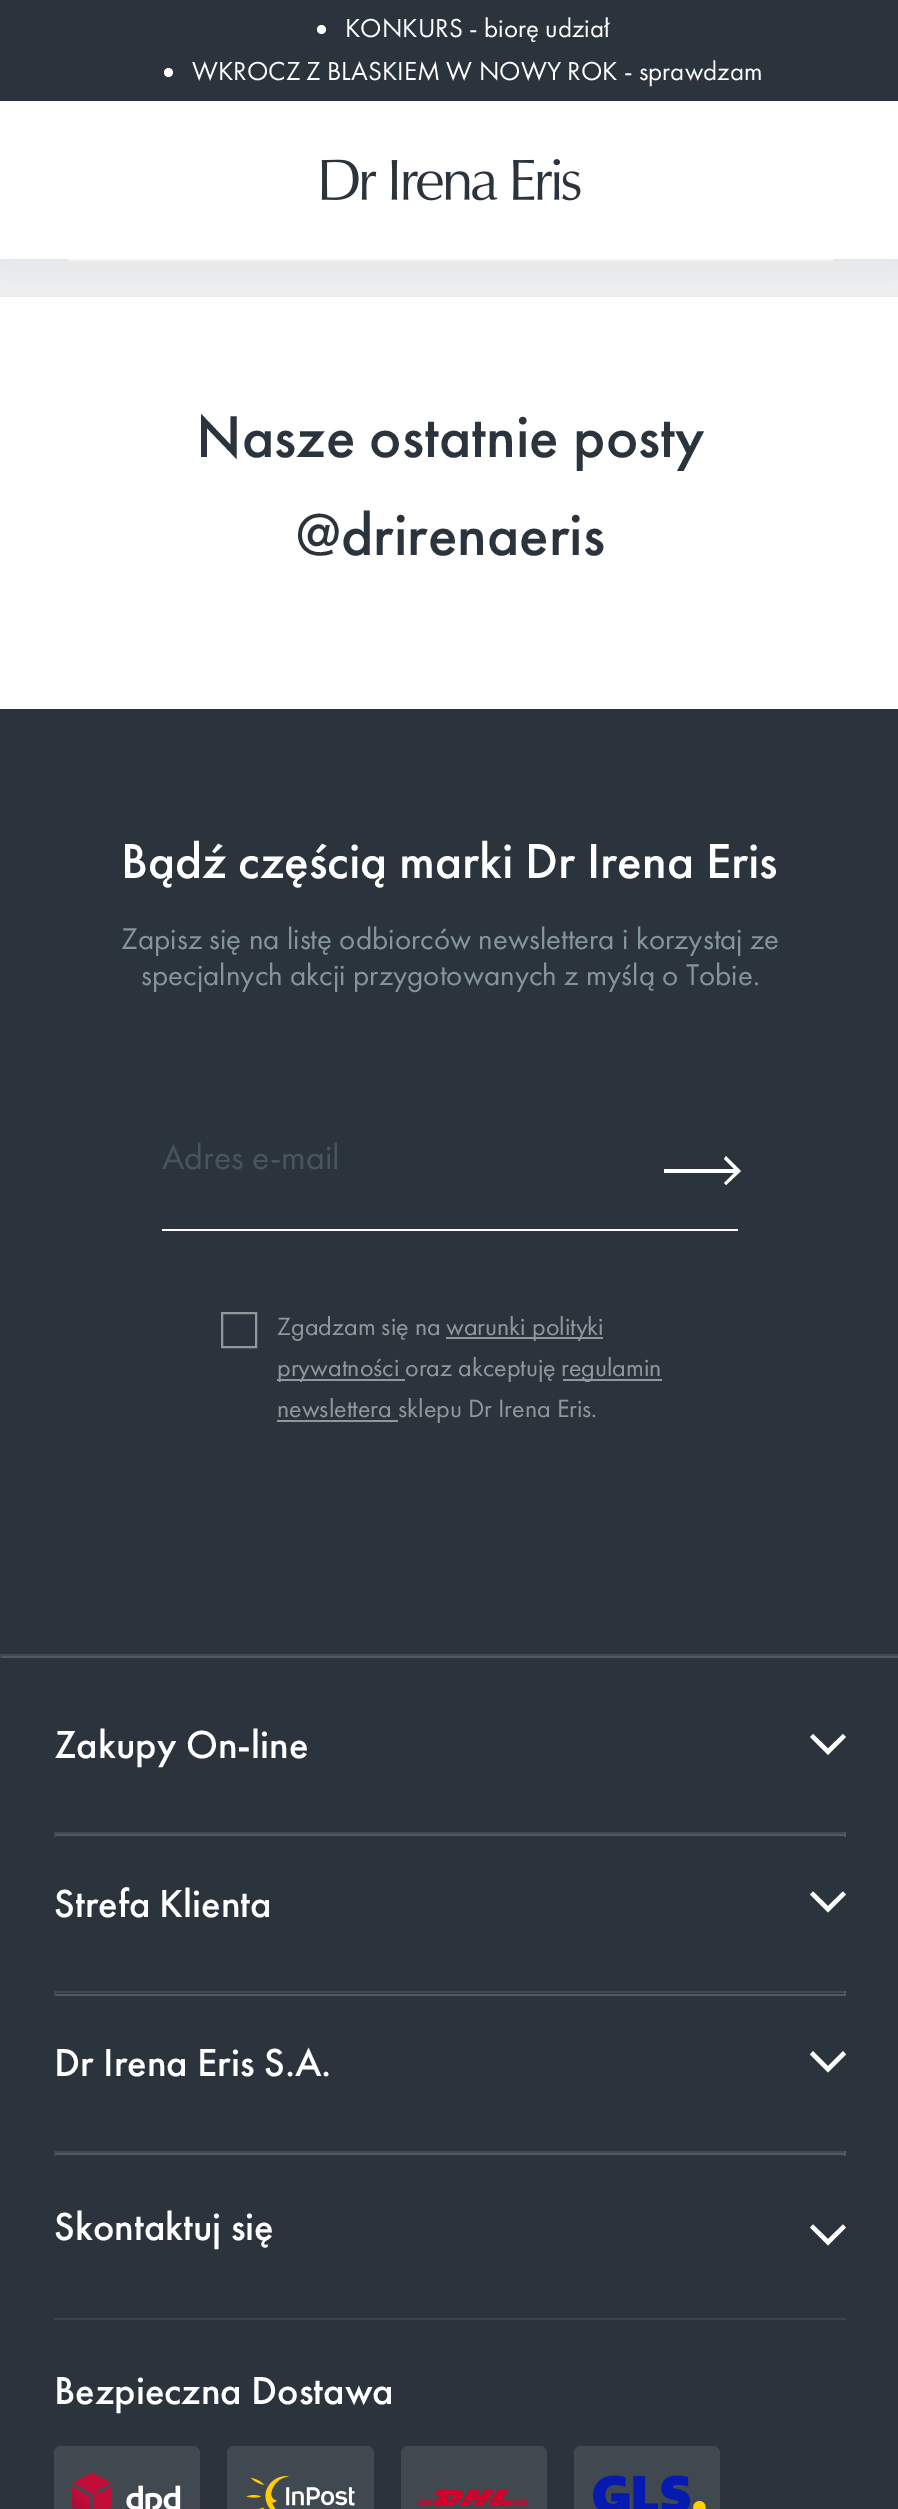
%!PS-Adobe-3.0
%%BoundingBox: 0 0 898 2509
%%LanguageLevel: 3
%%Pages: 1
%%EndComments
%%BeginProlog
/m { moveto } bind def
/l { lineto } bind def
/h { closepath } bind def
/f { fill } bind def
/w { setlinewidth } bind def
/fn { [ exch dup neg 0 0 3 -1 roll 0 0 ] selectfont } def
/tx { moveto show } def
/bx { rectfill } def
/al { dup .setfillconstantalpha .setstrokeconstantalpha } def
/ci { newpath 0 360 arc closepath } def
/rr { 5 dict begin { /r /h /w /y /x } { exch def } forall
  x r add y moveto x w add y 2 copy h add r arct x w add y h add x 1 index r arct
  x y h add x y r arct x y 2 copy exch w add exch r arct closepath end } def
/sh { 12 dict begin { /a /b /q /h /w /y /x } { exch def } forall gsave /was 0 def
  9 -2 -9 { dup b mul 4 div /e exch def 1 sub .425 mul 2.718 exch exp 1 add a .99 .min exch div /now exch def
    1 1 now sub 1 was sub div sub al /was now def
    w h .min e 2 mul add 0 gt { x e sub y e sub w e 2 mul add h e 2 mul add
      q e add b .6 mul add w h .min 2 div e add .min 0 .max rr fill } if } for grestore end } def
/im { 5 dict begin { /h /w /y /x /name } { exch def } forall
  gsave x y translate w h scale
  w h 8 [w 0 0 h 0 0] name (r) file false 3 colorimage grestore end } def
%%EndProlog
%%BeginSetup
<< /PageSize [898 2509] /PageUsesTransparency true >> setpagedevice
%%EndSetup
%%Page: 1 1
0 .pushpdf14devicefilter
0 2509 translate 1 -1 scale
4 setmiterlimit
1 setgray
0 0 898 2509 bx
0.169 0.204 0.239 setrgbcolor
0 0 898 101 bx
1 setgray
321.5 29.5 4.5 ci f
/FuturaPT-Regular 27 fn
(KONKURS - biorę udział) 345 37 tx
168.5 72.5 4.5 ci f
(WKROCZ Z BLASKIEM W NOWY ROK - sprawdzam) 192 80 tx
0.937 0.941 0.945 setrgbcolor
0 259 898 38 bx
1 setgray
68 259 765 2 bx
0 setgray
0 108 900 158 0 22.5 0.05 sh
1 setgray
0 101 898 158 bx
(image0.raw) 321 159 260 42 im
/FuturaPT-Medium 61.25 fn
0.169 0.204 0.239 setrgbcolor
(Nasze ostatnie posty) 196 457 tx
(@drirenaeris) 296 555 tx
0 709 898 945 bx
/FuturaPT-Medium 51.1 fn
1 setgray
(Bądź częścią marki Dr Irena Eris) 121 878 tx
/FuturaPT-Regular 31 fn
0.518 0.584 0.62 setrgbcolor
(Zapisz się na listę odbiorców newslettera i korzystaj ze) 121 949 tx
(specjalnych akcji przygotowanych z myślą o Tobie.) 141 985 tx
1 setgray
162 1229 576 2 bx
/FuturaPT-Regular 36 fn
0.275 0.333 0.369 setrgbcolor
(Adres e-mail) 162 1169 tx
1 setgray
664 1173 m 734 1173 l 724 1183 l 726 1185 l 741 1171 l 726 1156 l 724 1159 l 734 1169 l 664 1169 l h f
0.576 0.592 0.604 setrgbcolor
2 w
222 1313 34 34 rectstroke
/FuturaPT-Regular 26 fn
(Zgadzam się na) 277 1335 tx
446 1337 157 2 bx
(warunki polityki) 446 1335 tx
277 1379 128 2 bx
(prywatności) 277 1376 tx
(oraz akceptuję) 405 1376 tx
563 1379 99 2 bx
(regulamin) 561 1376 tx
(newslettera) 277 1417 tx
277 1420 121 2 bx
(sklepu Dr Irena Eris.) 398 1417 tx
0.259 0.286 0.318 setrgbcolor
0 1654 898 2 bx
0.322 0.349 0.376 setrgbcolor
0 1656 898 2 bx
0.259 0.286 0.318 setrgbcolor
0 1654 2 4 bx
0.169 0.204 0.239 setrgbcolor
0 1658 898 851 bx
/FuturaPT-Medium 40.5 fn
1 setgray
(Zakupy On-line) 54 1758 tx
846 1737 m 843 1734 l 828 1748.5 l 813 1734 l 810 1737 l 828 1755 l h f
0.259 0.286 0.318 setrgbcolor
54 1832 792 2 bx
0.322 0.349 0.376 setrgbcolor
844 1832 2 5 bx
54 1834 792 2 bx
0.259 0.286 0.318 setrgbcolor
54 1832 2 5 bx
1 setgray
(Strefa Klienta) 54 1917 tx
846 1894.5 m 843 1891.5 l 828 1906 l 813 1891.5 l 810 1894.5 l 828 1912.5 l h f
0.259 0.286 0.318 setrgbcolor
54 1991 792 2 bx
0.322 0.349 0.376 setrgbcolor
844 1991 2 5 bx
54 1994 792 2 bx
0.259 0.286 0.318 setrgbcolor
54 1991 2 5 bx
1 setgray
(Dr Irena Eris S.A.) 54 2076 tx
846 2054.5 m 843 2051 l 828 2066 l 813 2051 l 810 2054.5 l 828 2072.5 l h f
0.259 0.286 0.318 setrgbcolor
54 2151 792 2 bx
0.322 0.349 0.376 setrgbcolor
844 2151 2 5 bx
54 2153 792 2 bx
0.259 0.286 0.318 setrgbcolor
54 2151 2 5 bx
1 setgray
(Skontaktuj się) 54 2240 tx
846 2227.5 m 843 2224.5 l 828 2239 l 813 2224.5 l 810 2227.5 l 828 2245.5 l h f
0.235 0.263 0.29 setrgbcolor
54 2318 792 2 bx
1 setgray
(Bezpieczna Dostawa) 54 2404 tx
0.251 0.282 0.314 setrgbcolor
54 2446 146 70 7 rr f
(image1.raw) 72 2472 109 37 im
227 2446 147 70 7 rr f
(image2.raw) 246 2476 109 33 im
401 2446 146 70 7 rr f
(image3.raw) 418 2490 110 16 im
574 2446 146 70 7 rr f
(image4.raw) 593 2475 113 34 im
.poppdf14devicefilter showpage
%%EOF
